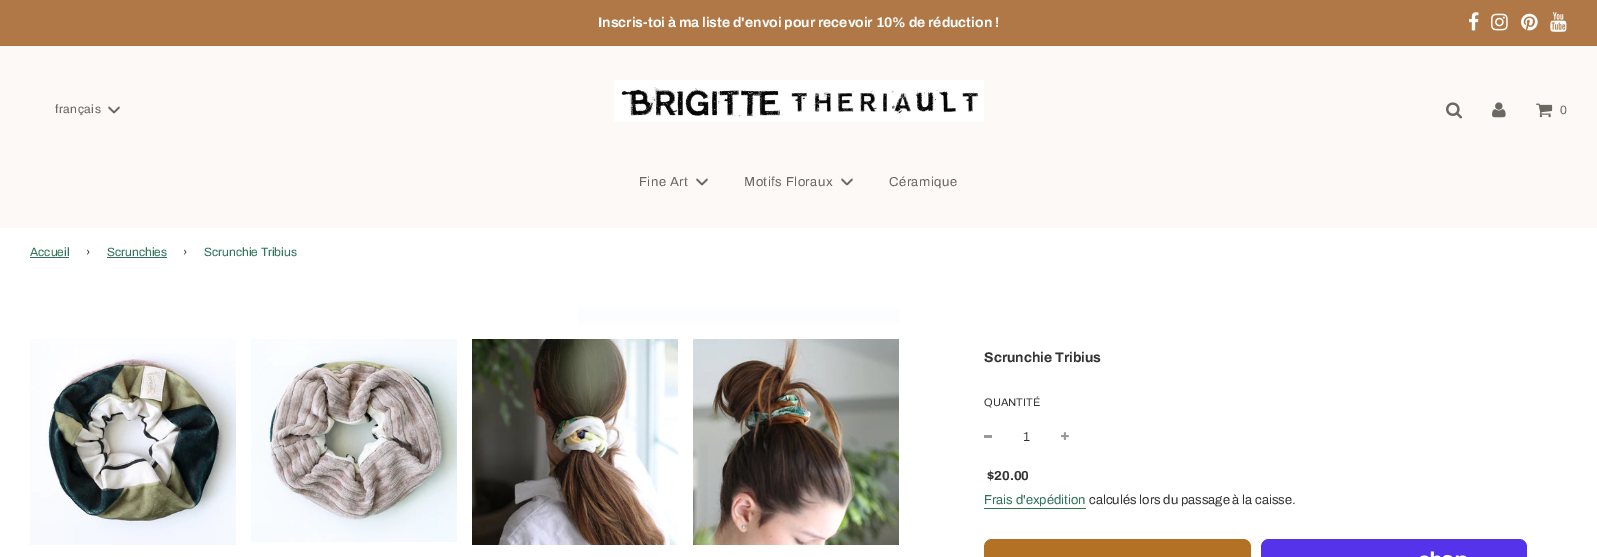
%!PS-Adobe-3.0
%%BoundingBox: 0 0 1597 557
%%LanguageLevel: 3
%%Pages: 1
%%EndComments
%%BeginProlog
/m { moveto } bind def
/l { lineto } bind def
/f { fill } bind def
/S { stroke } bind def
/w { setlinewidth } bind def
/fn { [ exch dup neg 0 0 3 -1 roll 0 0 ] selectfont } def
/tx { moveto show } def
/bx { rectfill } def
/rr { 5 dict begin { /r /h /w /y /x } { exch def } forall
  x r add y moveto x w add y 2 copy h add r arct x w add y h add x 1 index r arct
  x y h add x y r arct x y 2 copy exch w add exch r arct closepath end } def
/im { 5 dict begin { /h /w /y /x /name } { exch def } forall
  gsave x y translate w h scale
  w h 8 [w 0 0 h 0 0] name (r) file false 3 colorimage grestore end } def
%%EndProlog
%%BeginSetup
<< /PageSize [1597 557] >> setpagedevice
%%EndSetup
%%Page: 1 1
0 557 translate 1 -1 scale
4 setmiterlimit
1 setgray
0 0 1597 557 bx
0.69 0.471 0.275 setrgbcolor
0 0 1597 46 bx
/Archivo-Bold 14 fn
1 setgray
(Inscris-toi à ma liste d'envoi pour recevoir 10% de réduction !) 598 27 tx
(image0.raw) 1469 12 10 19 im
(image1.raw) 1491 13 17 18 im
(image2.raw) 1521 13 17 18 im
(image3.raw) 1550 12 17 20 im
0.988 0.976 0.965 setrgbcolor
0 46 1597 182 bx
/Archivo-Regular 12 fn
0.42 0.408 0.38 setrgbcolor
55 113 m 0.5 0 (français) ashow
1.7 w
1 setlinecap
1 setlinejoin
109 107.5 m 114 112.5 l 119 107.5 l S
(image4.raw) 614 80 370 42 im
(image5.raw) 1446 102 17 17 im
(image6.raw) 1492 102 14 16 im
(image7.raw) 1536 103 17 15 im
1560 114 m 0.5 0 (0) ashow
/Archivo-Regular 13 fn
639 186 m 0.5 0 (Fine Art) ashow
697 179.5 m 702 184.5 l 707 179.5 l S
744 186 m 0.5 0 (Motifs Floraux) ashow
842 179.5 m 847 184.5 l 852 179.5 l S
889 186 m 0.5 0 (Céramique) ashow
/Archivo-Regular 12 fn
0.18 0.455 0.345 setrgbcolor
(Accueil) 30 256 tx
30 257 39 1 bx
0.2 setgray
(›) 86 256 tx
0.18 0.455 0.345 setrgbcolor
(Scrunchies) 107 256 tx
107 257 60 1 bx
0.2 setgray
(›) 183 256 tx
0.18 0.455 0.345 setrgbcolor
(Scrunchie Tribius) 204 256 tx
0.984 0.992 1 setrgbcolor
578 308 321 16 bx
(image8.raw) 30 339 206 206 im
(image9.raw) 251 339 206 203 im
(image10.raw) 472 339 206 206 im
(image11.raw) 693 339 206 206 im
/Archivo-Bold 14 fn
0.2 setgray
(Scrunchie Tribius) 984 362 tx
/Archivo-Regular 11 fn
(QUANTITÉ) 984 406 tx
0.6 setgray
984 435 8 3 bx
/Archivo-Regular 13 fn
0.2 setgray
(1) 1023 441 tx
(image12.raw) 1061 432 8 8 im
/Archivo-Bold 13 fn
($20.00) 987 480 tx
/Archivo-Regular 13 fn
0.18 0.455 0.345 setrgbcolor
(Frais d'expédition) 984 504 tx
984 508 102 1 bx
0.2 setgray
(calculés lors du passage à la caisse.) 1089 504 tx
0.702 0.443 0.149 setrgbcolor
984 539 267 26 8 rr f
0.329 0.2 0.922 setrgbcolor
1261 539 266 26 8 rr f
(image13.raw) 1420 551 47 6 im
showpage
%%EOF
